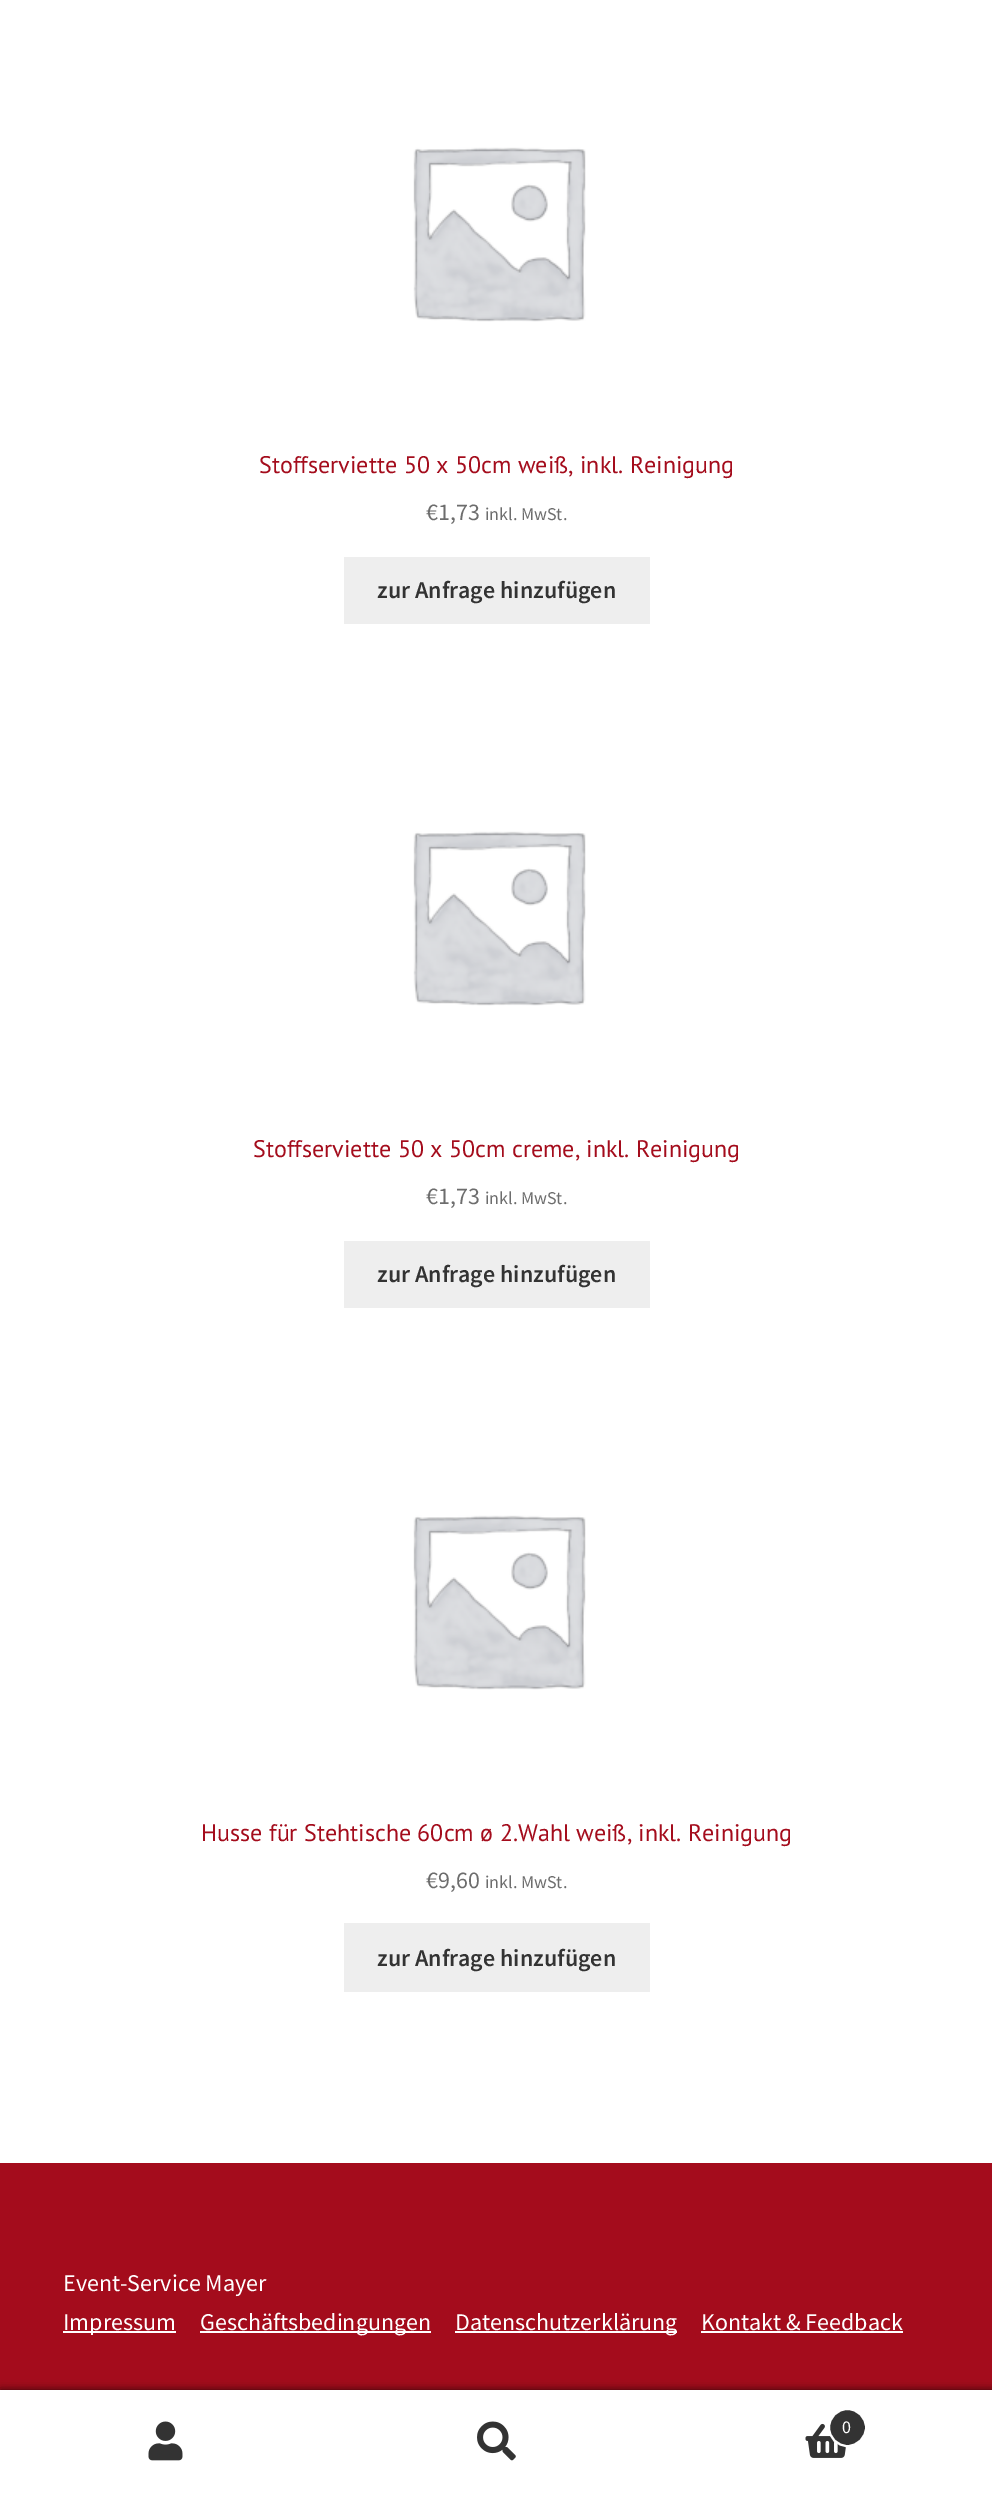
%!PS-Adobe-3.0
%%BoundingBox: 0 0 992 2493
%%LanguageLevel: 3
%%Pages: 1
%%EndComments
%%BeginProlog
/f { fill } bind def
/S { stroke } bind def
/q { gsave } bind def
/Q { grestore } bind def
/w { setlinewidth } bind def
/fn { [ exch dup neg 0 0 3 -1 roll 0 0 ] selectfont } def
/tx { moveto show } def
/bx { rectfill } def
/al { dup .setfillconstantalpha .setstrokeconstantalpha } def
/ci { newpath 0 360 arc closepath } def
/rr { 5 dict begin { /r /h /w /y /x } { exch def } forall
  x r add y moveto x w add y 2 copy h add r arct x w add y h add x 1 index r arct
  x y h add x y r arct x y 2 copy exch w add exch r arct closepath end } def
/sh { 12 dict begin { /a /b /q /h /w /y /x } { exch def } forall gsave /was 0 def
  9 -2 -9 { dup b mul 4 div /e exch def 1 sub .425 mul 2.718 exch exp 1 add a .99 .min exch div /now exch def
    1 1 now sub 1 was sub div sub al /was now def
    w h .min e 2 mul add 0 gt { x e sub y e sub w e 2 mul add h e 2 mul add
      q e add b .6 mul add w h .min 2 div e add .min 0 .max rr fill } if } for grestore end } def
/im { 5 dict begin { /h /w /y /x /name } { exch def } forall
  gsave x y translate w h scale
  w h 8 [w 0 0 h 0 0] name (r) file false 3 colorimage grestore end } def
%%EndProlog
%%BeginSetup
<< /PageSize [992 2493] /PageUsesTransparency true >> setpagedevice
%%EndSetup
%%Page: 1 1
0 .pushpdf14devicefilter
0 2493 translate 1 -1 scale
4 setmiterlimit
1 setgray
0 0 992 2493 bx
(image0.raw) 413 147 173 175 im
/PTSans-Regular 24 fn
0.643 0.047 0.11 setrgbcolor
(Stoffserviette 50 x 50cm weiß, inkl. Reinigung) 259 473 tx
/SourceSansPro-Regular 24 fn
0.427 setgray
(€1,73) 426 520 tx
/SourceSansPro-Regular 18 fn
(inkl. MwSt.) 485 520 tx
0.933 setgray
344 557 306 67 bx
/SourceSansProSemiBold-SemiBold 24 fn
0.2 setgray
(zur Anfrage hinzufügen) 377 598 tx
(image0.raw) 413 831 173 175 im
/PTSans-Regular 24 fn
0.643 0.047 0.11 setrgbcolor
(Stoffserviette 50 x 50cm creme, inkl. Reinigung) 253 1157 tx
/SourceSansPro-Regular 24 fn
0.427 setgray
(€1,73) 426 1204 tx
/SourceSansPro-Regular 18 fn
(inkl. MwSt.) 485 1204 tx
0.933 setgray
344 1241 306 67 bx
/SourceSansProSemiBold-SemiBold 24 fn
0.2 setgray
(zur Anfrage hinzufügen) 377 1282 tx
(image0.raw) 413 1515 173 175 im
/PTSans-Regular 24 fn
0.643 0.047 0.11 setrgbcolor
(Husse für Stehtische 60cm ø 2.Wahl weiß, inkl. Reinigung) 201 1841 tx
/SourceSansPro-Regular 24 fn
0.427 setgray
(€9,60) 426 1888 tx
/SourceSansPro-Regular 18 fn
(inkl. MwSt.) 485 1888 tx
0.933 setgray
344 1923 306 69 bx
/SourceSansProSemiBold-SemiBold 24 fn
0.2 setgray
(zur Anfrage hinzufügen) 377 1966 tx
0.643 0.047 0.11 setrgbcolor
0 2163 992 227 bx
/SourceSansPro-Regular 24 fn
1 setgray
(Event-Service Mayer) 63 2291 tx
63 2331 113 2 bx
(Impressum) 63 2330 tx
200 2331 231 2 bx
(Geschäftsbedingungen) 200 2330 tx
455 2331 222 2 bx
(Datenschutzerklärung) 455 2330 tx
(Kontakt & Feedback) 701 2330 tx
701 2331 202 2 bx
0 setgray
0 2390 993 103 0 4.5 0.7 sh
1 setgray
0 2390 992 1 bx
0 2391 992 102 bx
(image1.raw) 148 2421 35 40 im
(image2.raw) 477 2421 39 40 im
(image3.raw) 805 2423 41 35 im
0.2 setgray
847.5 2427.5 18.5 ci q f Q
1 setgray
2 w
S
/SourceSansPro-Regular 18 fn
(0) 842 2433 tx
.poppdf14devicefilter showpage
%%EOF
